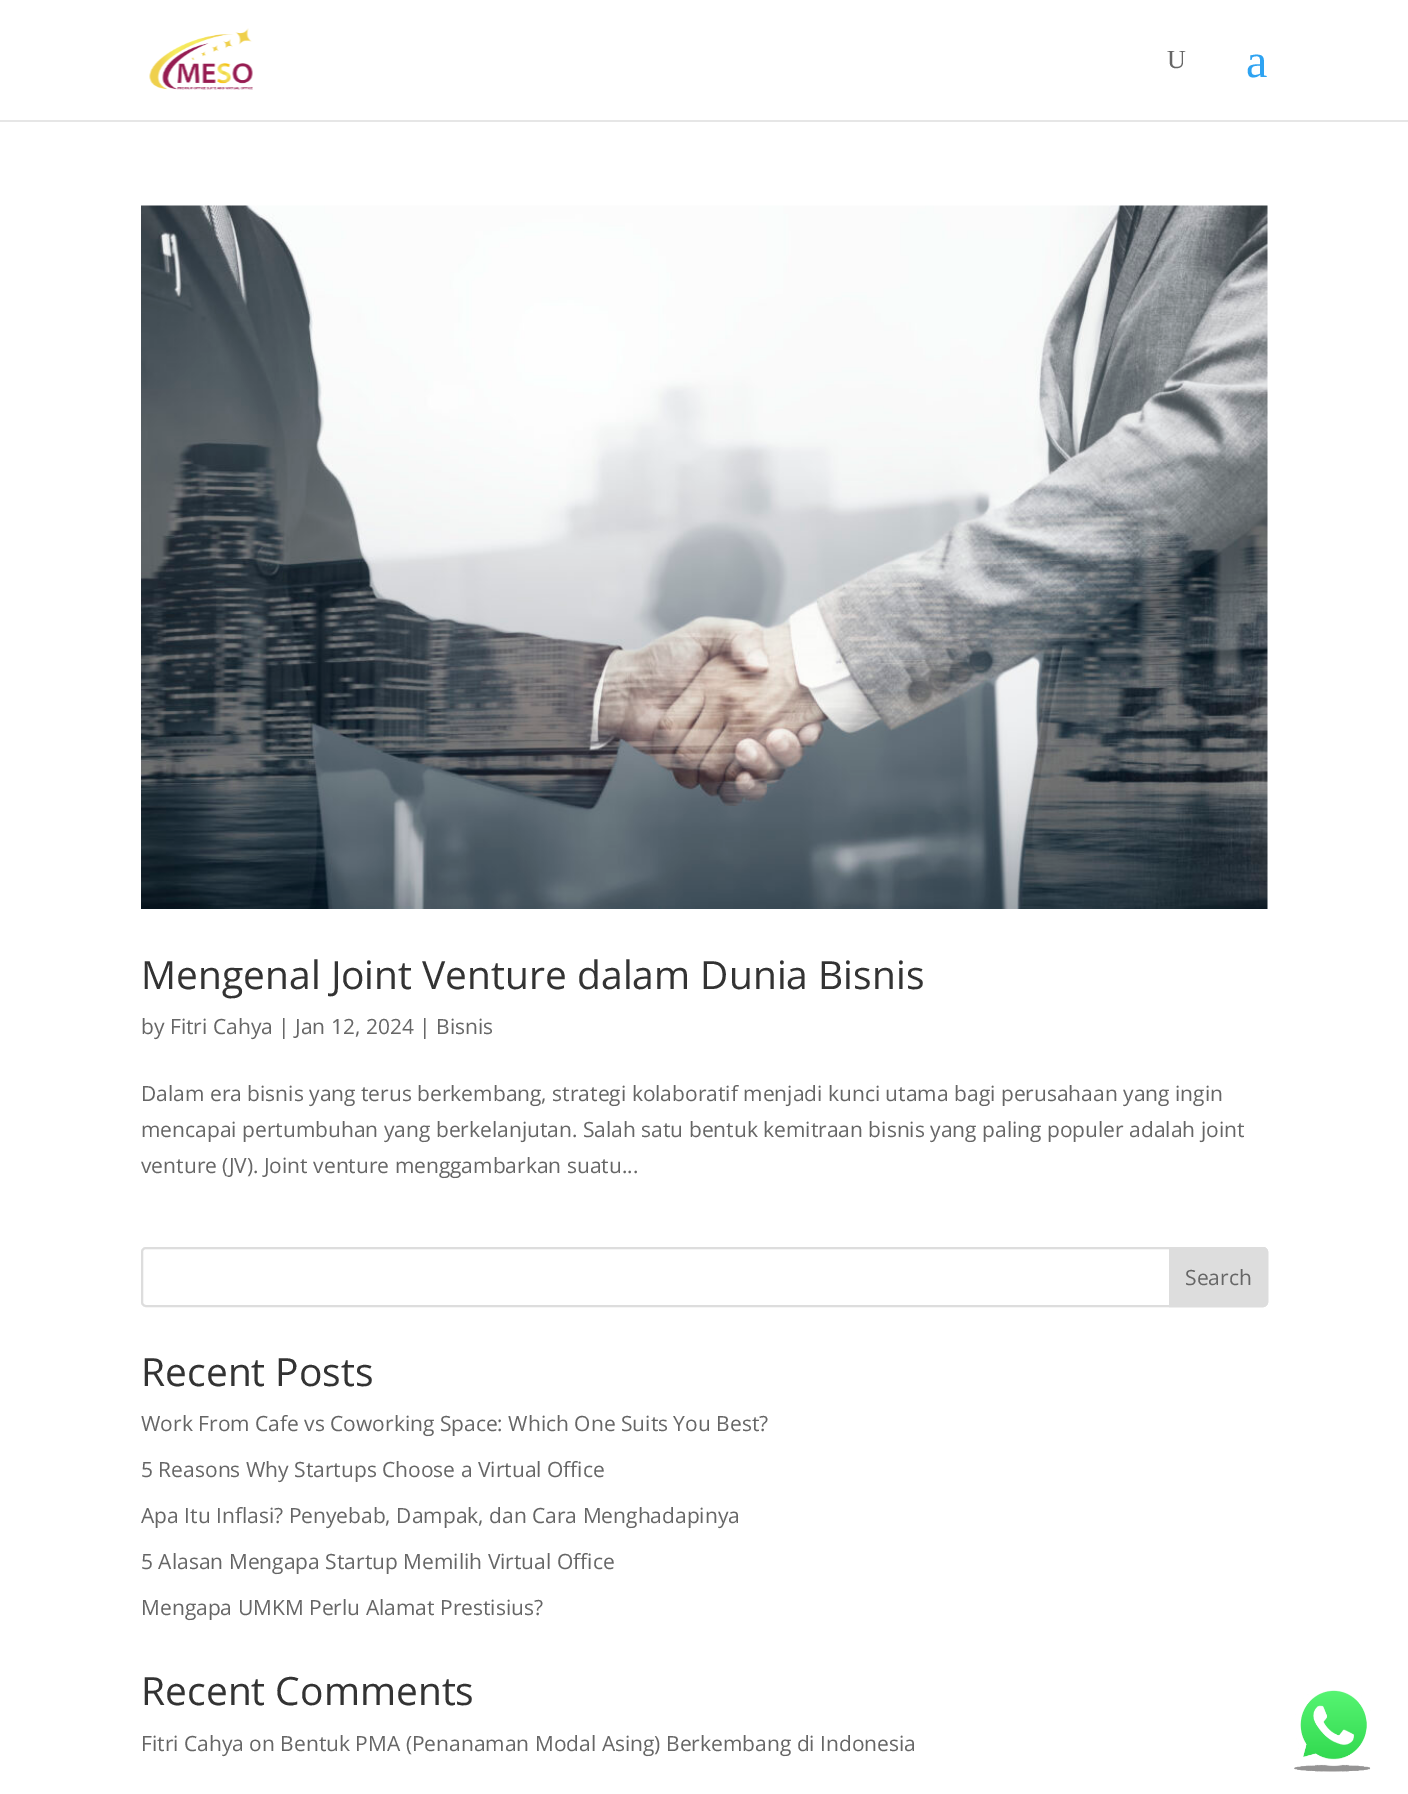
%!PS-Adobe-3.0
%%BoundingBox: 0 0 1408 1794
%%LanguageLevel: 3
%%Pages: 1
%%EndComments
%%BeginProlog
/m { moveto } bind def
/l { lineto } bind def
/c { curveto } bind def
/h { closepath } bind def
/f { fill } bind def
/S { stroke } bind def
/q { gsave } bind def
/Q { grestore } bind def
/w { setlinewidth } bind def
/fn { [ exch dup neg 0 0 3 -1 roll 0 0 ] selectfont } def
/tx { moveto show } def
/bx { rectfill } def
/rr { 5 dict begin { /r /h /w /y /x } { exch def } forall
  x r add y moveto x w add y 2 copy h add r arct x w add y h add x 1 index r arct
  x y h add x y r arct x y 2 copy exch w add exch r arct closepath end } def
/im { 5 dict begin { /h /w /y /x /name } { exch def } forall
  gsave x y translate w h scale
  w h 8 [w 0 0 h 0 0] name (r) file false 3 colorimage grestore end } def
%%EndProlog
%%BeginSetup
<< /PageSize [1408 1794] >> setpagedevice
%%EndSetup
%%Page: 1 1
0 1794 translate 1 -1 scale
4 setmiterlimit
1 setgray
0 0 1408 1794 bx
0.902 setgray
0 120 m 0 122 l 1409 122 l 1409 2 l 1408 2 l 1408 120 l h f
(image0.raw) 149 28 104 62 im
/LiberationSerif-Regular 26 fn
0.4 setgray
(U) 1167 68 tx
/LiberationSerif-Regular 48 fn
0.18 0.639 0.949 setrgbcolor
(a) 1246 77 tx
(image1.raw) 141 205 1127 704 im
/OpenSans-Regular 39 fn
0.2 setgray
(Mengenal Joint Venture dalam Dunia Bisnis) 141 989 tx
/OpenSans-Regular 21 fn
0.4 setgray
(by Fitri Cahya | Jan 12, 2024 | Bisnis) 141 1034 tx
(Dalam era bisnis yang terus berkembang, strategi kolaboratif menjadi kunci utama bagi perusahaan yang ingin) 141 1101 tx
(mencapai pertumbuhan yang berkelanjutan. Salah satu bentuk kemitraan bisnis yang paling populer adalah joint) 141 1137 tx
(venture \(JV\). Joint venture menggambarkan suatu...) 141 1173 tx
0.867 setgray
2 w
142 1248 1125 58 4 rr S
1170 1248 m 1263 1248 l 1265 1248 1267 1250 1267 1252 c 1267 1302 l 1267 1304 1265 1306 1263 1306 c 1170 1306 l h q f Q
S
0.4 setgray
(Search) 1185 1285 tx
/OpenSans-Regular 39 fn
0.2 setgray
(Recent Posts) 141 1386 tx
/OpenSans-Regular 21 fn
0.4 setgray
(Work From Cafe vs Coworking Space: Which One Suits You Best?) 141 1431 tx
(5 Reasons Why Startups Choose a Virtual Office) 141 1477 tx
(Apa Itu Inflasi? Penyebab, Dampak, dan Cara Menghadapinya) 141 1523 tx
(5 Alasan Mengapa Startup Memilih Virtual Office) 141 1569 tx
(Mengapa UMKM Perlu Alamat Prestisius?) 141 1615 tx
/OpenSans-Regular 39 fn
0.2 setgray
(Recent Comments) 141 1705 tx
/OpenSans-Regular 21 fn
0.4 setgray
(Fitri Cahya on Bentuk PMA \(Penanaman Modal Asing\) Berkembang di Indonesia) 141 1751 tx
(image2.raw) 1294 1690 77 82 im
showpage
%%EOF
